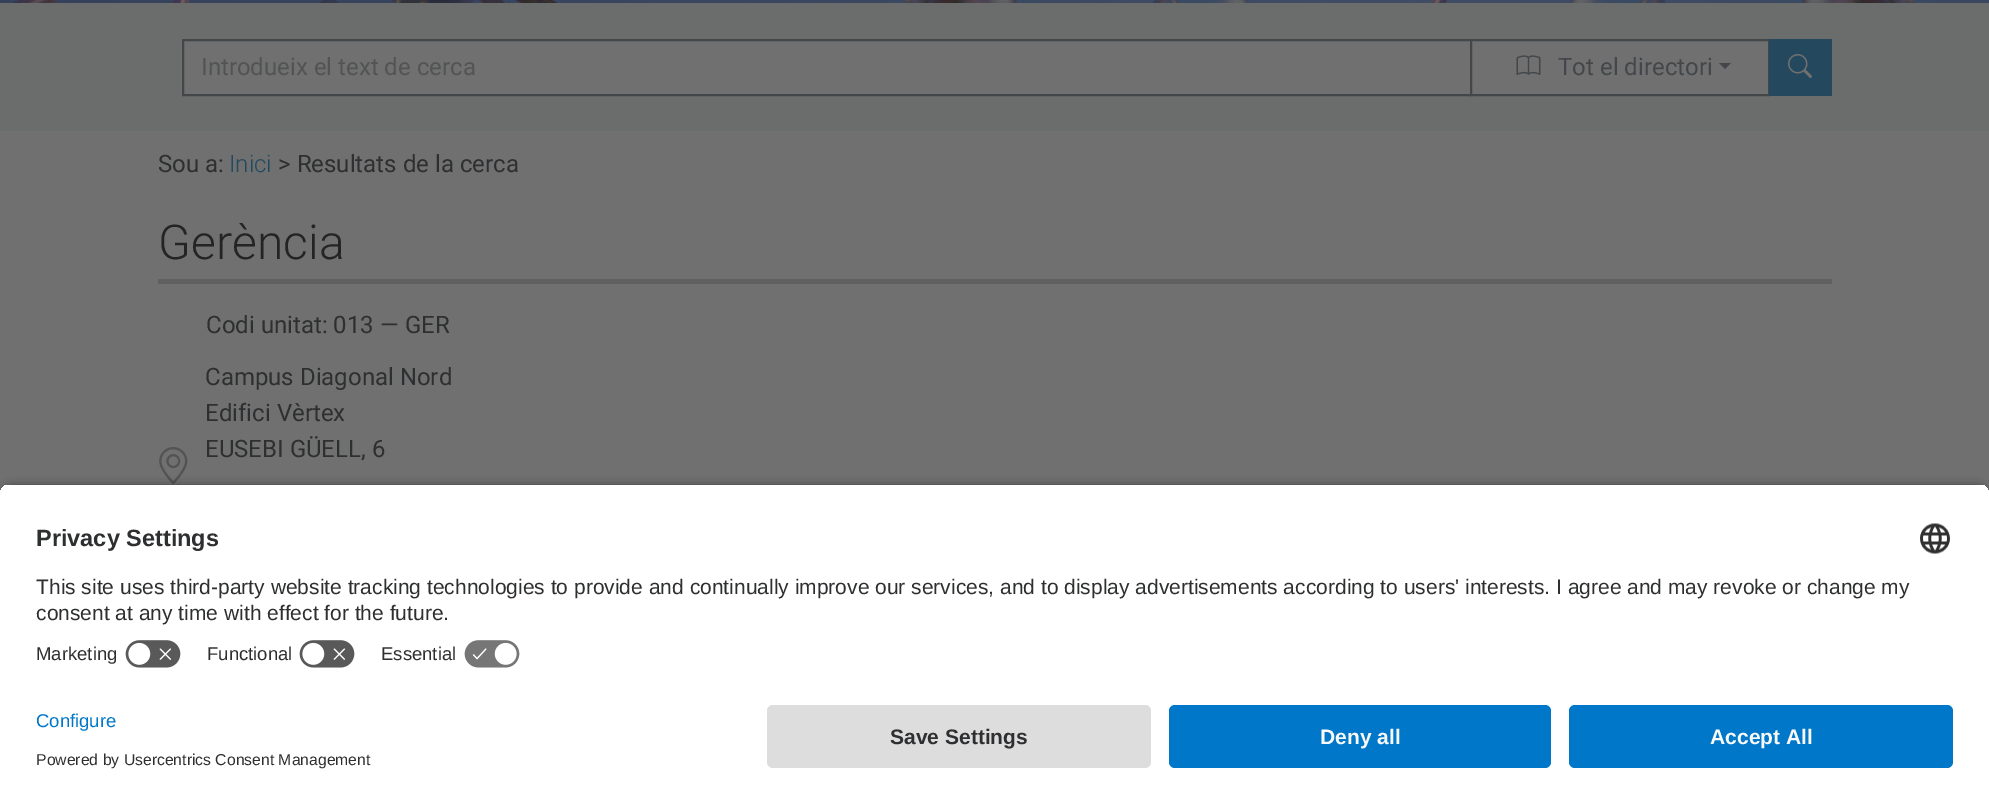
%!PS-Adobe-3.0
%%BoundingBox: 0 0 1989 803
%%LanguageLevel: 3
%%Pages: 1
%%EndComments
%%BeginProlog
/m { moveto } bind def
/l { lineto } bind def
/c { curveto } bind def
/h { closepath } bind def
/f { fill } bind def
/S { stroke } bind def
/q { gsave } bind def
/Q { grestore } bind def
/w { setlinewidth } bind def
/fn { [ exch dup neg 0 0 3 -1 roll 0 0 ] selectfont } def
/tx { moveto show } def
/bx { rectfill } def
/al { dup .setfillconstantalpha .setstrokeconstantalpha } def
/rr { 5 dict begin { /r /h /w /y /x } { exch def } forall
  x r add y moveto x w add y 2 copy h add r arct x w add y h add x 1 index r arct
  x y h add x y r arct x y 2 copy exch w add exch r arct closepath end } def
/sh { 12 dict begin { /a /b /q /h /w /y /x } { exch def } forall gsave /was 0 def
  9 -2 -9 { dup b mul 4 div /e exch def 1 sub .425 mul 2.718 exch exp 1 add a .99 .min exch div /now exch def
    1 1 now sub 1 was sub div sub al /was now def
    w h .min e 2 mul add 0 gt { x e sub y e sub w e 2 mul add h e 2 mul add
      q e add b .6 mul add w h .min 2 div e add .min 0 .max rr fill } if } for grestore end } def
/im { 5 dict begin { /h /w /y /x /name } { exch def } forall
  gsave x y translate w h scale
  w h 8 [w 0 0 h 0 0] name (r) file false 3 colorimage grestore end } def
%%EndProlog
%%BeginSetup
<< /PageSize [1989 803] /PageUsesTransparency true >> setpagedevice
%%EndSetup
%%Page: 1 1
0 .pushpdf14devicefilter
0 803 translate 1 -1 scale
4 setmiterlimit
0.439 setgray
0 0 1989 803 bx
(image0.raw) 0 0 1989 3 im
0.42 0.424 0.424 setrgbcolor
0 3 1989 128 bx
0.439 setgray
183 40 m 1471 40 l 1471 95 l 183 95 l h q f Q
0.267 0.278 0.286 setrgbcolor
2 w
S
/Roboto-Regular 24 fn
0.322 0.325 0.325 setrgbcolor
(Introdueix el text de cerca) 201 75 tx
0.439 setgray
1471 40 m 1769 40 l 1769 95 l 1471 95 l h q f Q
0.267 0.278 0.286 setrgbcolor
S
(image1.raw) 1516 55 25 20 im
(Tot el directori) 1558 75 tx
1719 63 m 1731 63 l 1725 69 l h f
0.141 0.286 0.369 setrgbcolor
1769 39 63 57 bx
(image2.raw) 1788 54 24 24 im
0.18 0.184 0.188 setrgbcolor
(Sou a:) 158 172 tx
/Roboto-Light 24 fn
0.141 0.286 0.369 setrgbcolor
(Inici) 229 172 tx
/Roboto-Regular 24 fn
0.18 0.184 0.188 setrgbcolor
(> Resultats de la cerca) 278 172 tx
/Roboto-Light 48 fn
0.141 setgray
(Gerència) 158 259 tx
0.376 setgray
158 279 1674 5 bx
/Roboto-Regular 24 fn
0.18 0.184 0.188 setrgbcolor
(Codi unitat: 013 — GER) 206 333 tx
(Campus Diagonal Nord) 205 385 tx
(Edifici Vèrtex) 205 421 tx
(EUSEBI GÜELL, 6) 205 457 tx
(image3.raw) 159 447 29 38 im
0 setgray
0 488 1989 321 12 5 0.8 sh
q
12 483 m 1977 483 l 1983.5 483 1989 488.5 1989 495 c 1989 693 l 0 693 l 0 495 l 0 488.5 5.5 483 12 483 c h clip newpath
1 setgray
0 485 1989 208 bx
0 485 1989 148 bx
Q
/LiberationSans-Bold 23.5 fn
0.18 0.184 0.188 setrgbcolor
(Privacy Settings) 36 546 tx
(image4.raw) 1920 523 30 31 im
/LiberationSans-Regular 21 fn
(This site uses third-party website tracking technologies to provide and continually improve our services, and to display advertisements according to users' interests. I agree and may revoke or change my) 36 594 tx
(consent at any time with effect for the future.) 36 620 tx
/LiberationSans-Regular 18.5 fn
(Marketing) 36 660 tx
(image5.raw) 125 640 56 28 im
(Functional) 207 660 tx
(image5.raw) 299 640 56 28 im
(Essential) 381 660 tx
(image6.raw) 464 640 56 28 im
1 setgray
0 693 1989 110 bx
0 0.467 0.784 setrgbcolor
(Configure) 36 727 tx
/LiberationSans-Regular 15.75 fn
0.18 0.184 0.188 setrgbcolor
(Powered by Usercentrics Consent Management) 36 765 tx
0.867 setgray
767 705 384 63 6 rr f
/LiberationSans-Bold 21 fn
0.18 0.184 0.188 setrgbcolor
(Save Settings) 890 744 tx
0 0.467 0.784 setrgbcolor
1169 705 382 63 6 rr f
0.98 setgray
(Deny all) 1320 744 tx
0 0.467 0.784 setrgbcolor
1569 705 384 63 6 rr f
0.98 setgray
(Accept All) 1710 744 tx
.poppdf14devicefilter showpage
%%EOF
